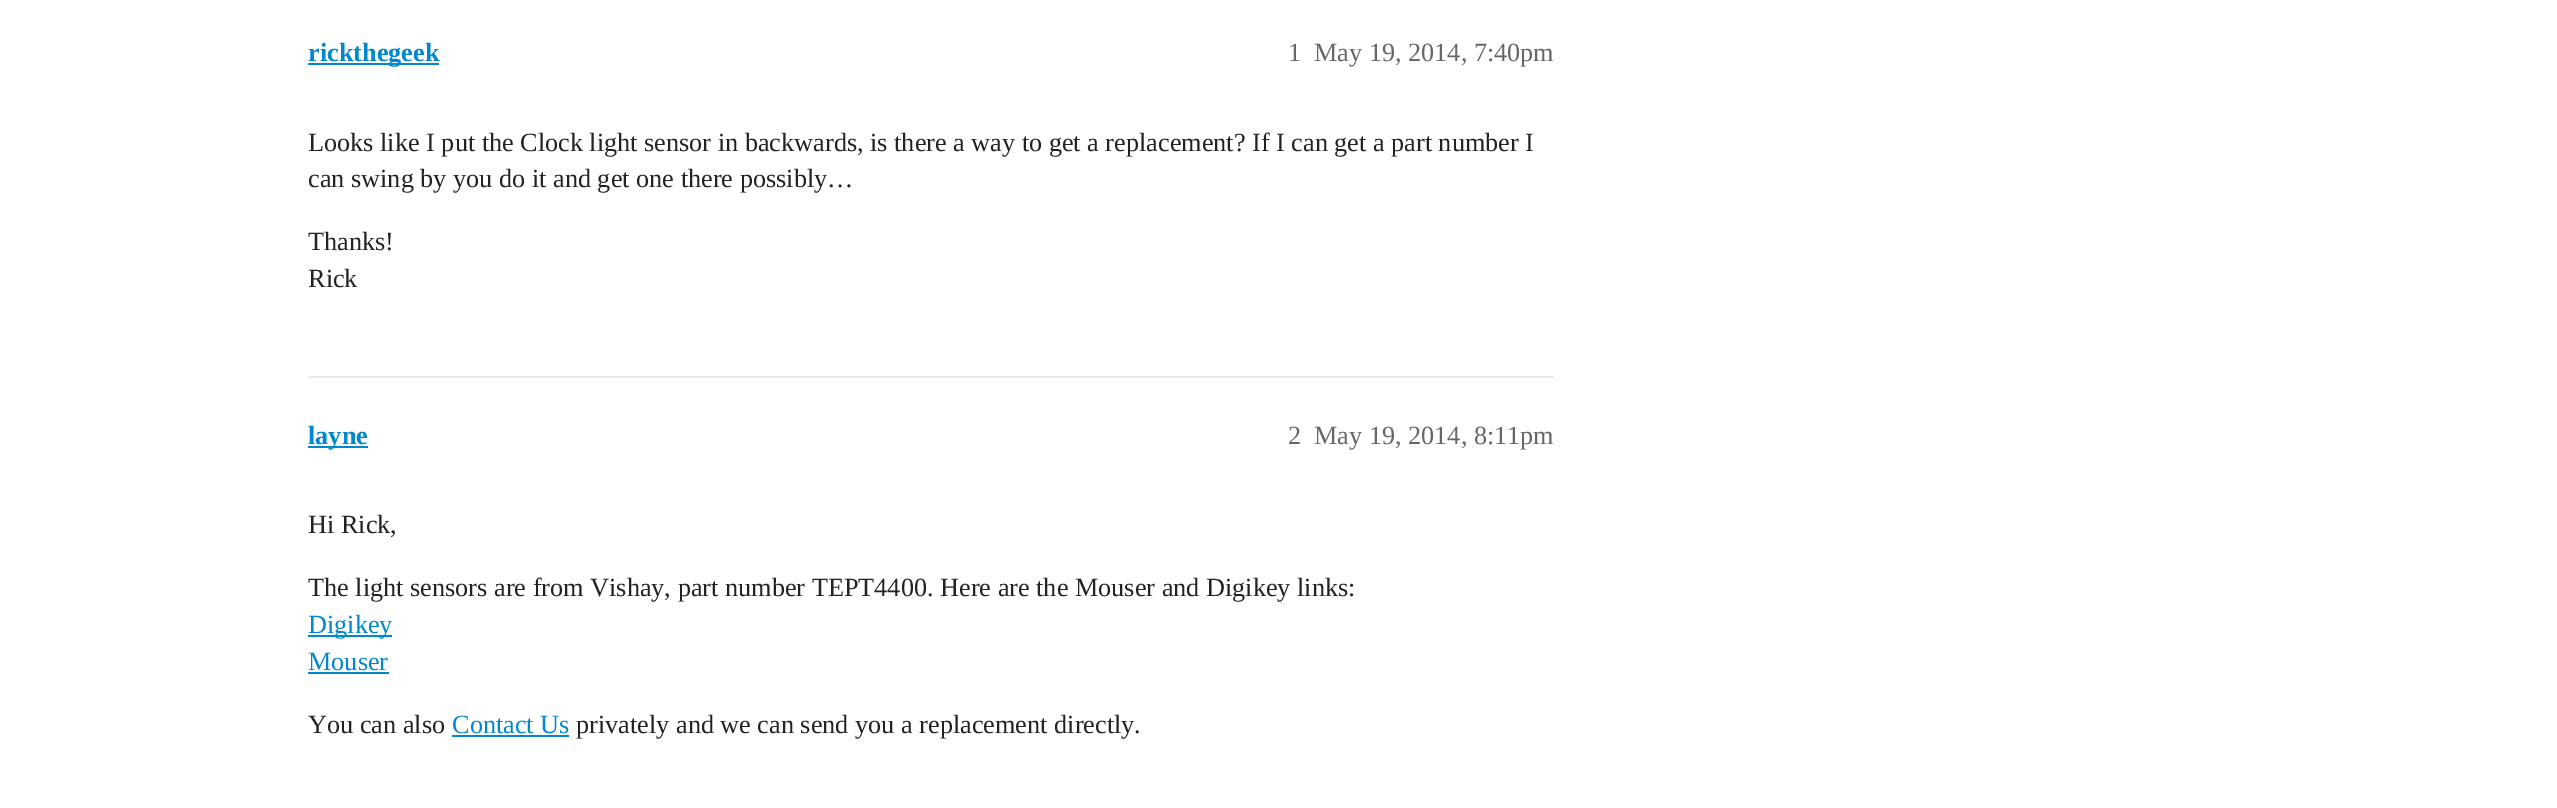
%!PS-Adobe-3.0
%%BoundingBox: 0 0 2557 808
%%LanguageLevel: 3
%%Pages: 1
%%EndComments
%%BeginProlog
/fn { [ exch dup neg 0 0 3 -1 roll 0 0 ] selectfont } def
/tx { moveto show } def
/bx { rectfill } def
%%EndProlog
%%BeginSetup
<< /PageSize [2557 808] >> setpagedevice
%%EndSetup
%%Page: 1 1
0 808 translate 1 -1 scale
4 setmiterlimit
1 setgray
0 0 2557 808 bx
0 0.533 0.8 setrgbcolor
308 63 131 2 bx
/LiberationSerif-Bold 26.25 fn
(rickthegeek) 308 61 tx
/LiberationSerif-Regular 26.25 fn
0.4 setgray
(1) 1288 61 tx
(May 19, 2014, 7:40pm) 1314 61 tx
0.133 setgray
(Looks like I put the Clock light sensor in backwards, is there a way to get a replacement? If I can get a part number I) 308 151 tx
(can swing by you do it and get one there possibly…) 308 187 tx
(Thanks!) 308 250 tx
(Rick) 308 287 tx
0.914 setgray
308 376 1246 2 bx
0 0.533 0.8 setrgbcolor
308 446 60 2 bx
/LiberationSerif-Bold 26.25 fn
(layne) 308 444 tx
/LiberationSerif-Regular 26.25 fn
0.4 setgray
(2) 1288 444 tx
(May 19, 2014, 8:11pm) 1314 444 tx
0.133 setgray
(Hi Rick,) 308 533 tx
(The light sensors are from Vishay, part number TEPT4400. Here are the Mouser and Digikey links:) 308 596 tx
0 0.533 0.8 setrgbcolor
308 635 84 2 bx
(Digikey) 308 633 tx
(Mouser) 308 670 tx
308 672 81 2 bx
0.133 setgray
(You can also) 308 733 tx
0 0.533 0.8 setrgbcolor
(Contact Us) 452 733 tx
452 735 117 2 bx
0.133 setgray
(privately and we can send you a replacement directly.) 576 733 tx
showpage
%%EOF
